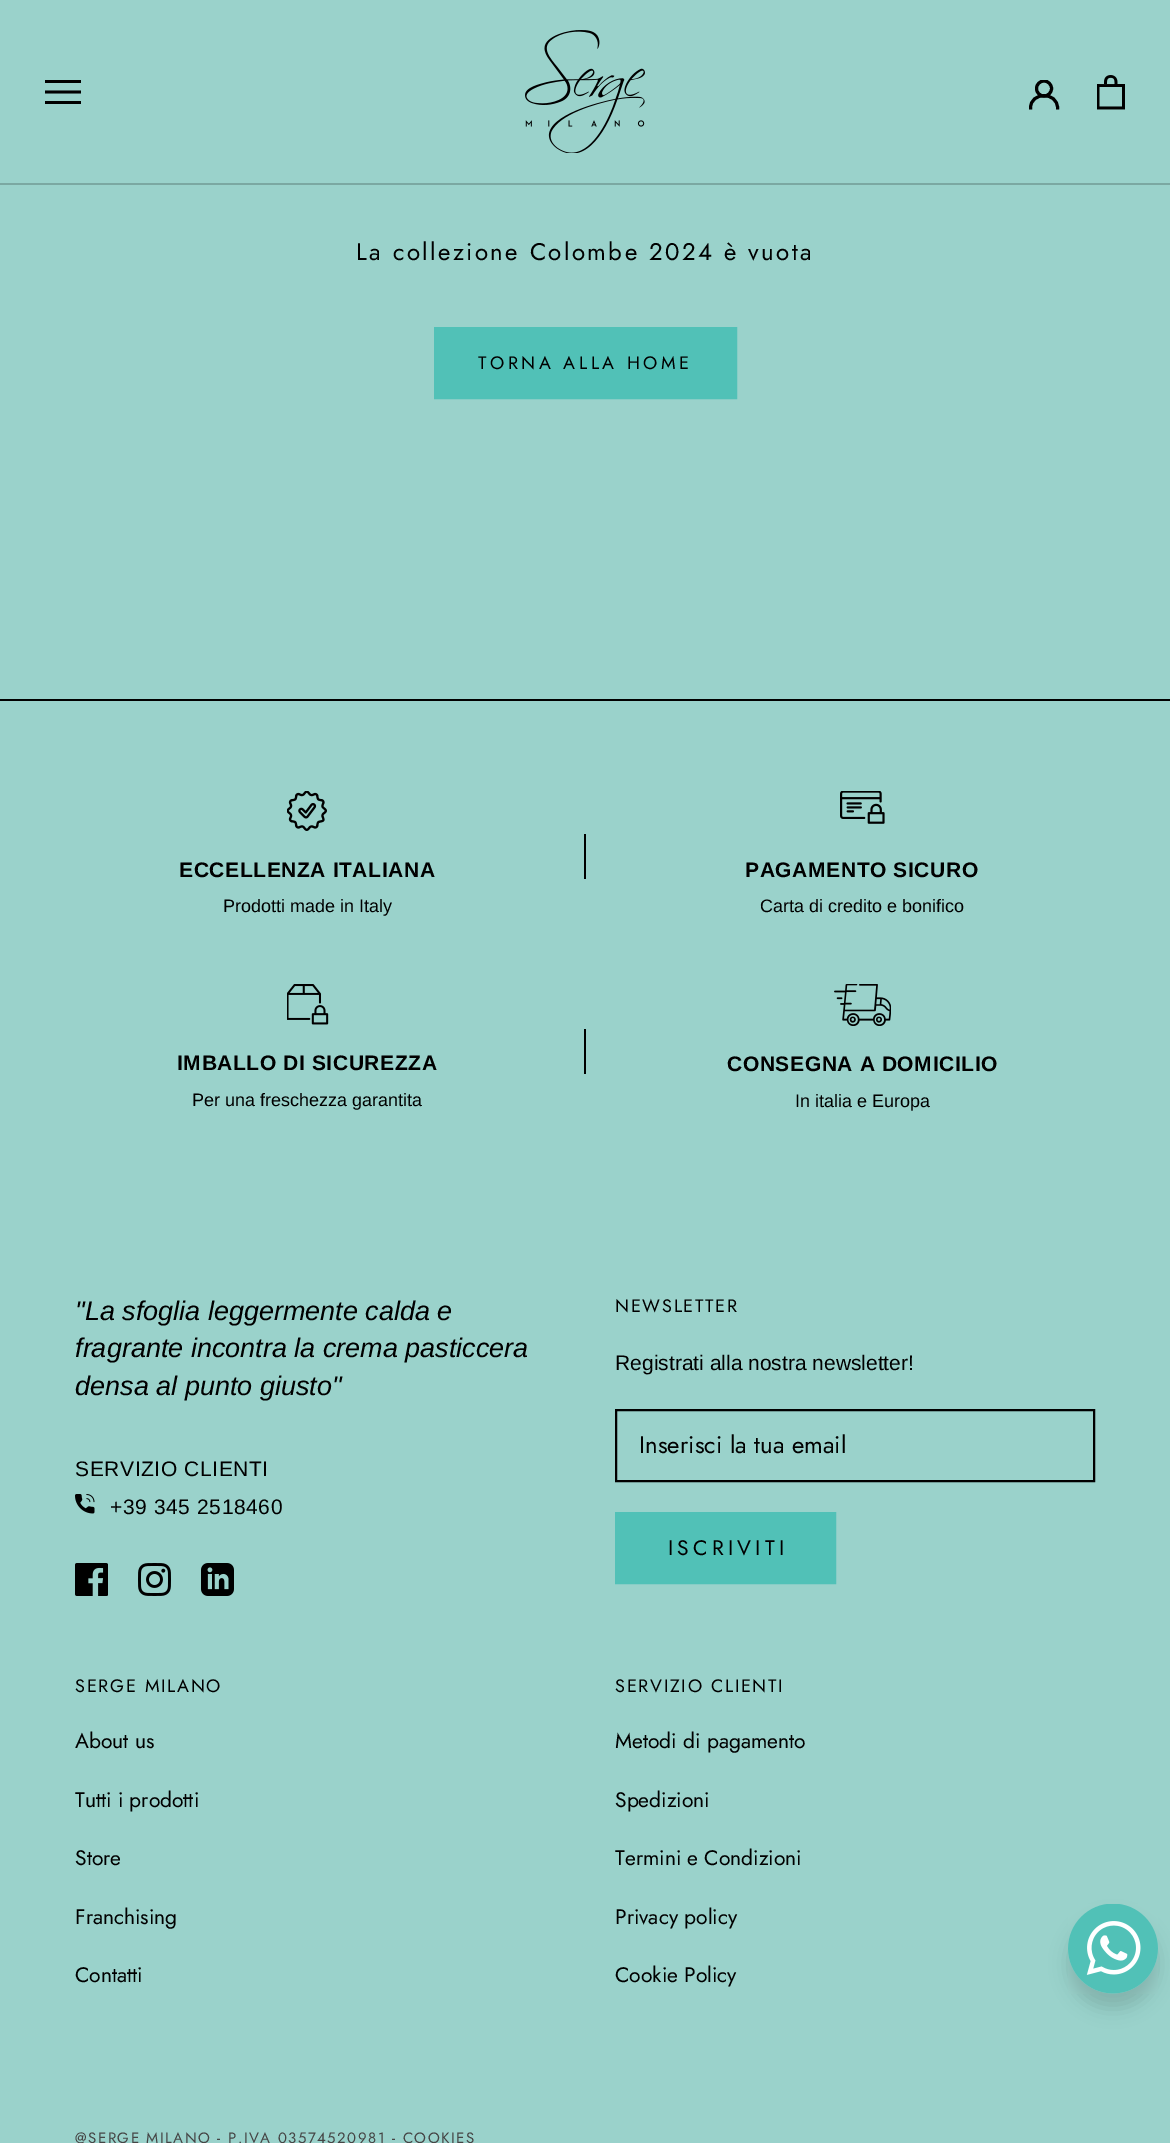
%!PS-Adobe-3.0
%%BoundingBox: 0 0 1170 2143
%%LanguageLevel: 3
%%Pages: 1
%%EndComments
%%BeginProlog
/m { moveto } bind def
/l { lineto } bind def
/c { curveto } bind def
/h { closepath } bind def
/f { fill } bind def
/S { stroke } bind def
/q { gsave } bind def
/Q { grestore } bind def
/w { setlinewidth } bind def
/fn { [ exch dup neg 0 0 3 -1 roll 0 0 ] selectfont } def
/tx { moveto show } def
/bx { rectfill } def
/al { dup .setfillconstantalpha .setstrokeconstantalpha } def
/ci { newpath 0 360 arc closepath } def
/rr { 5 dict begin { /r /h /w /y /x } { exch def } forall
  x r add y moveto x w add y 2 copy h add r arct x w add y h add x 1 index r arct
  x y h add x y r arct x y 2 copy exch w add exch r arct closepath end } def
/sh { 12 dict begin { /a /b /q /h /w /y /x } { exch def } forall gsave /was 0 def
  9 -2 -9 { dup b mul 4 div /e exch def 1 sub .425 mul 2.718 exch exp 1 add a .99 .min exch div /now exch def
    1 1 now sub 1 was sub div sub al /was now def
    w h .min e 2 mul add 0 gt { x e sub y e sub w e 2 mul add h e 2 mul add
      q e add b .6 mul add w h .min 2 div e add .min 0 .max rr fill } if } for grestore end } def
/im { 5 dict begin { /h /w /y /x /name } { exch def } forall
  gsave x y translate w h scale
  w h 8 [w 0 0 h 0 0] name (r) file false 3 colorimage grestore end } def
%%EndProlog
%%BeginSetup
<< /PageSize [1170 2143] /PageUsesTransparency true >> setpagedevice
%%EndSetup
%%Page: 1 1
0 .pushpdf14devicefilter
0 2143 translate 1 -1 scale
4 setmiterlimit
0.604 0.824 0.796 setrgbcolor
0 0 1170 2143 bx
0.482 0.659 0.635 setrgbcolor
0 183 1170 2 bx
0 setgray
45 104 m 45 101 l 81 101 l 81 104 l h 45 90.5 m 81 90.5 l 81 93.5 l 45 93.5 l h 45 80 m 81 80 l 81 83 l 45 83 l h f
(image0.raw) 525 30 120 123 im
3 w
2 setlinecap
1030.5 108 m 1030.5 91.5 1057.5 91.5 1057.5 108 c S
q
1029 80 30 30 rectclip
0 setlinecap
1044 88.5 7.5 ci S
Q
(image1.raw) 1097 75 28 35 im
/Jost-Regular 24 fn
356 260 m 2.4 0 (La collezione Colombe 2024 è vuota) ashow
0.318 0.757 0.718 setrgbcolor
2 w
0 setlinecap
435 328 301 70 rectstroke
436 329 299 68 bx
/Jost-Regular 18 fn
0 setgray
478 369 m 3.6 0 (TORNA ALLA HOME) ashow
0 699 1170 2 bx
584 834 2 45 bx
(image2.raw) 287 791 40 40 im
/LiberationSans-Bold 21 fn
179 877 m 0.6 0 (ECCELLENZA ITALIANA) ashow
/LiberationSans-Regular 18 fn
(Prodotti made in Italy) 223 912 tx
(image3.raw) 840 791 45 33 im
/LiberationSans-Bold 21 fn
745 877 m 0.6 0 (PAGAMENTO SICURO) ashow
/LiberationSans-Regular 18 fn
(Carta di credito e bonifico) 760 912 tx
(image4.raw) 287 984 42 41 im
/LiberationSans-Bold 21 fn
177 1070 m 0.6 0 (IMBALLO DI SICUREZZA) ashow
/LiberationSans-Regular 18 fn
(Per una freschezza garantita) 192 1106 tx
584 1029 2 45 bx
(image5.raw) 834 984 57 42 im
/LiberationSans-Bold 21 fn
727 1071 m 0.6 0 (CONSEGNA A DOMICILIO) ashow
/LiberationSans-Regular 18 fn
(In italia e Europa) 795 1107 tx
/LiberationSans-Italic 27 fn
("La sfoglia leggermente calda e) 75 1320 tx
(fragrante incontra la crema pasticcera) 75 1357 tx
(densa al punto giusto") 75 1395 tx
/LiberationSans-Regular 21 fn
75 1476 m 0.6 0 (SERVIZIO CLIENTI) ashow
(image6.raw) 75 1494 20 20 im
110 1514 m 0.6 0 (+39 345 2518460) ashow
(image7.raw) 75 1563 33 33 im
(image8.raw) 138 1563 33 33 im
(image9.raw) 201 1563 33 33 im
/Jost-Regular 18 fn
615 1312 m 1.75 0 (NEWSLETTER) ashow
/LiberationSans-Regular 21 fn
(Registrati alla nostra newsletter!) 615 1370 tx
616 1410 478 71 rectstroke
/Jost-Regular 24 fn
639 1453 m 0.1 0 (Inserisci la tua email) ashow
0.318 0.757 0.718 setrgbcolor
616 1513 219 70 rectstroke
617 1514 217 68 bx
/Jost-Regular 21 fn
0 setgray
668 1555 m 4.25 0 (ISCRIVITI) ashow
/Jost-Regular 18 fn
75 1692 m 1.75 0 (SERGE MILANO) ashow
/Jost-Regular 21 fn
(About us) 75 1748 tx
(Tutti i prodotti) 75 1807 tx
(Store) 75 1865 tx
(Franchising) 75 1924 tx
(Contatti) 75 1982 tx
/Jost-Regular 18 fn
615 1692 m 1.75 0 (SERVIZIO CLIENTI) ashow
/Jost-Regular 21 fn
(Metodi di pagamento) 615 1748 tx
(Spedizioni) 615 1807 tx
(Termini e Condizioni) 615 1865 tx
(Privacy policy) 615 1924 tx
(Cookie Policy) 615 1982 tx
/Jost-Regular 15 fn
0.271 setgray
75 2143 m 1.5 0 (@SERGE MILANO - P.IVA 03574520981 - COOKIES) ashow
0.075 setgray
1068 1919 90 90 45 9 0.16 sh
(image10.raw) 1068 1904 90 90 im
.poppdf14devicefilter showpage
%%EOF
